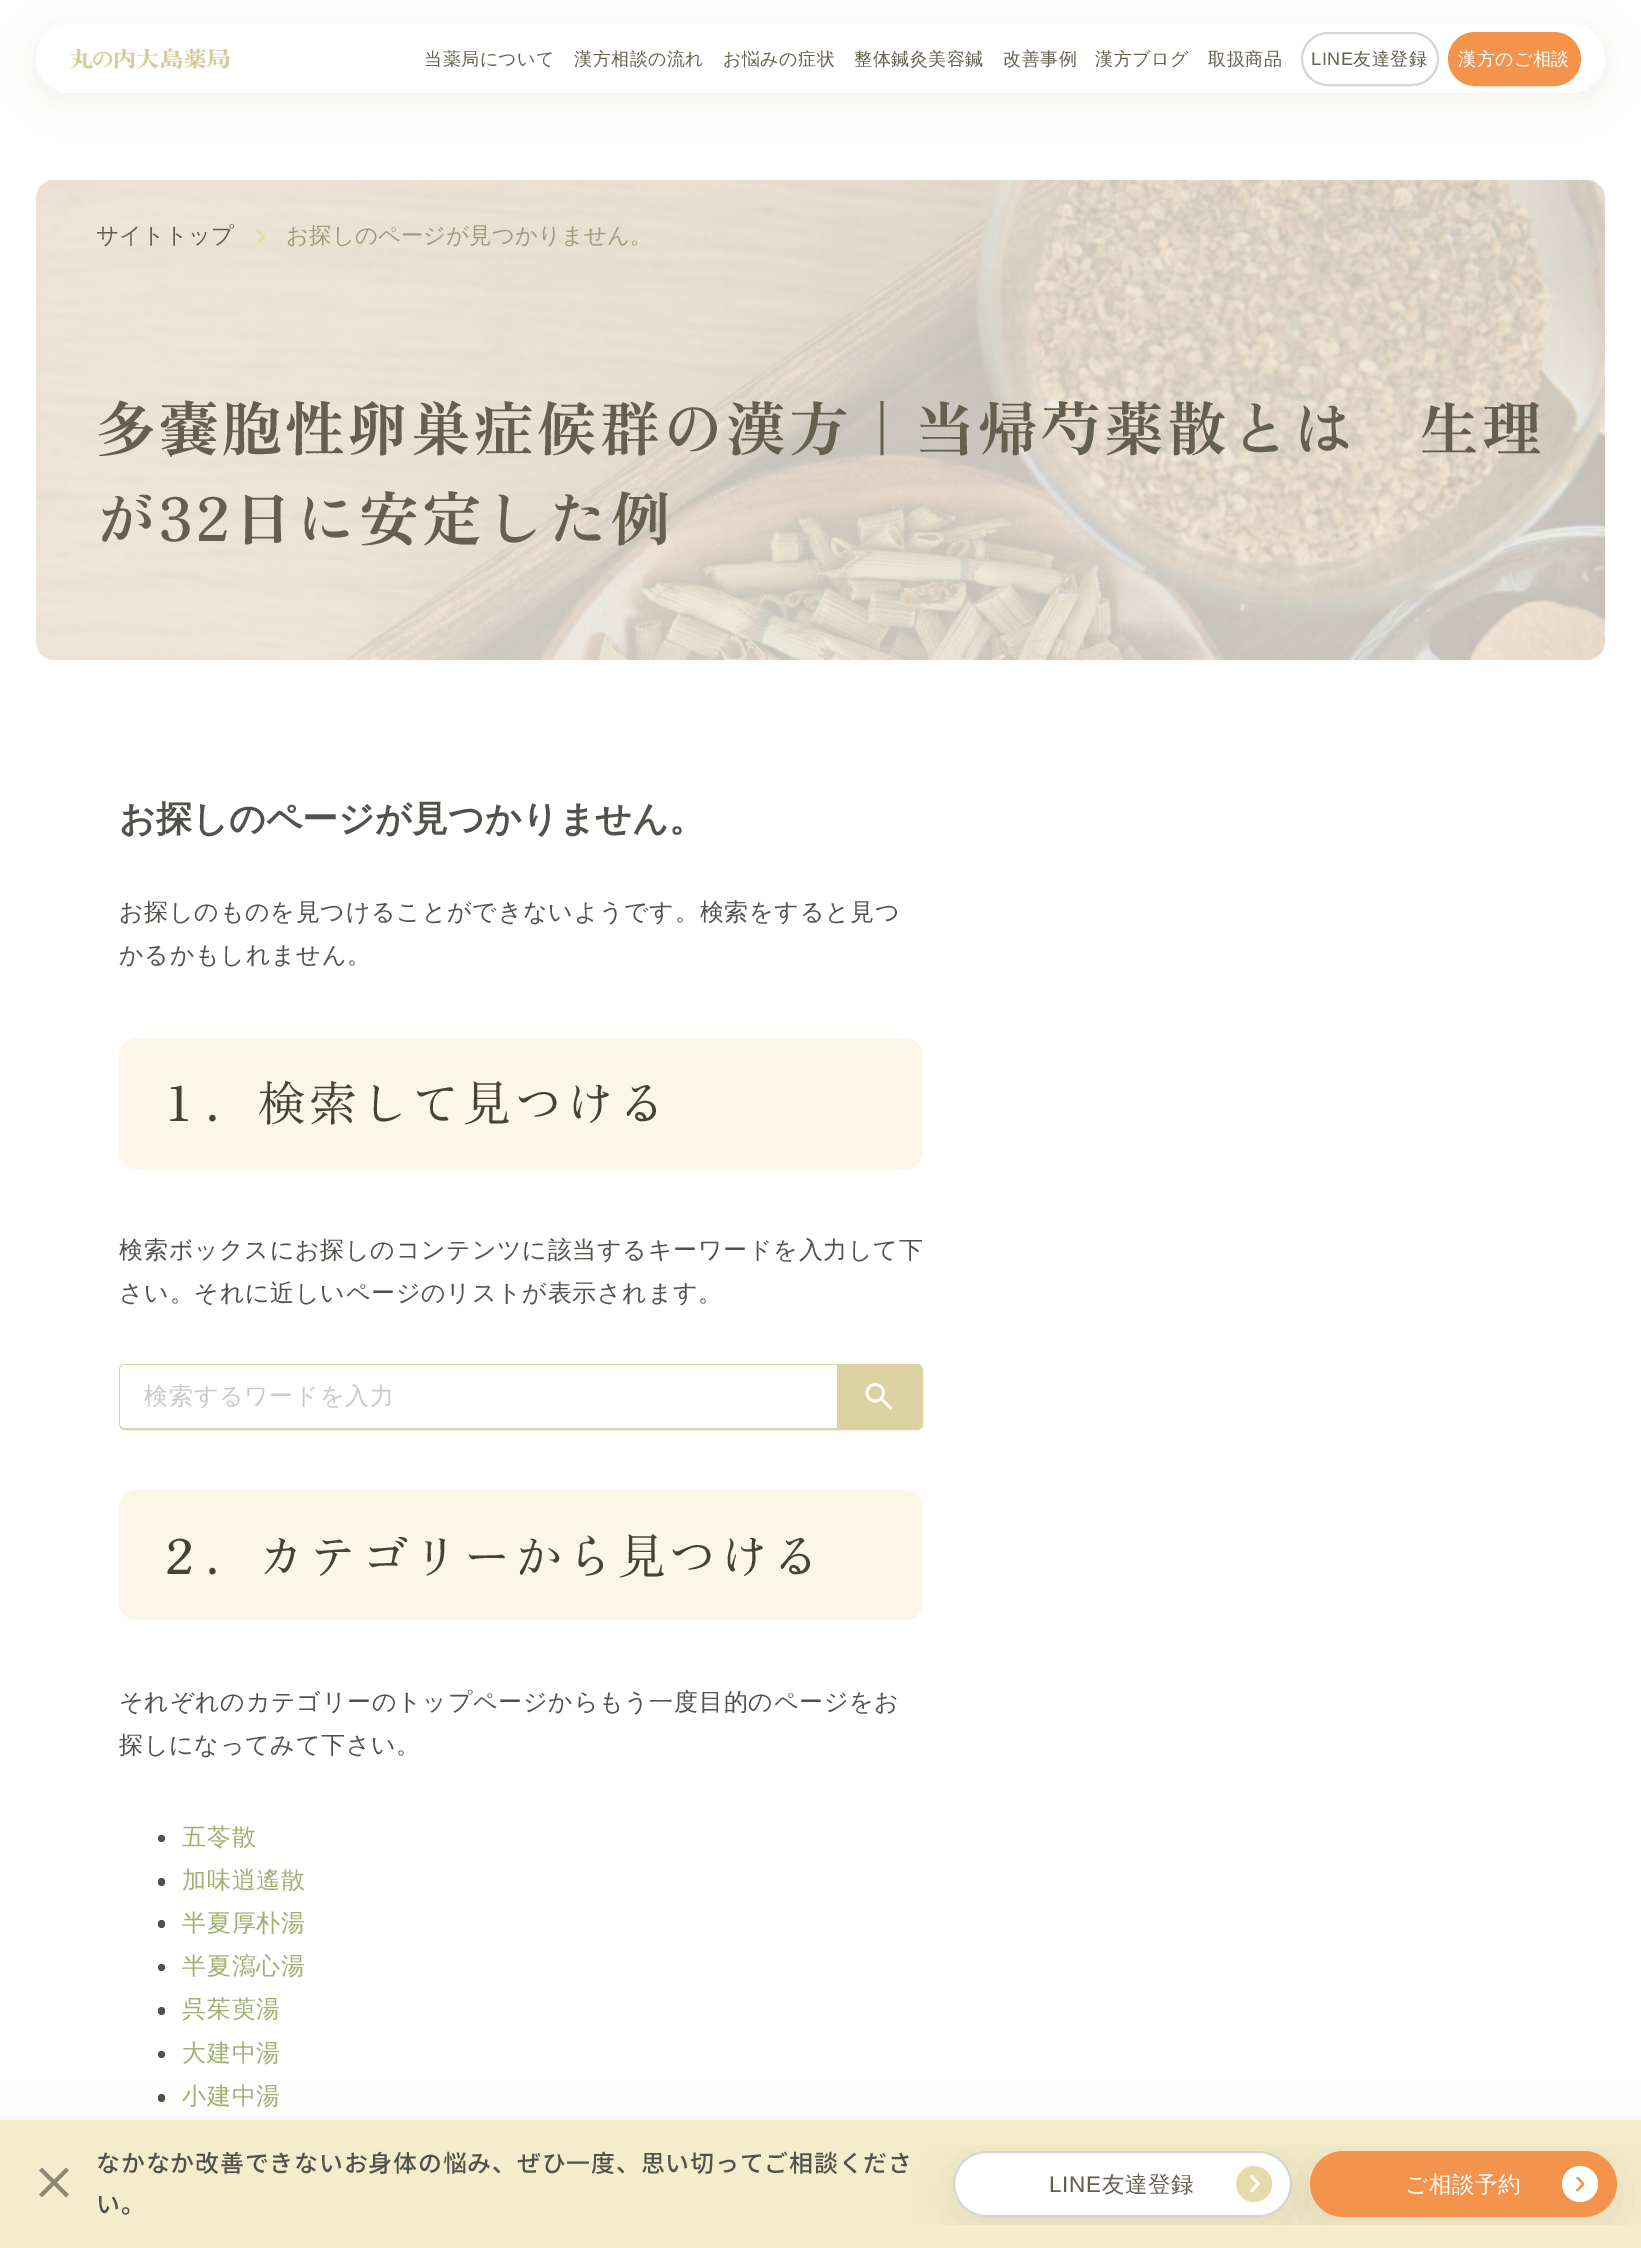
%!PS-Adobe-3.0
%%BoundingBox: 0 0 1641 2248
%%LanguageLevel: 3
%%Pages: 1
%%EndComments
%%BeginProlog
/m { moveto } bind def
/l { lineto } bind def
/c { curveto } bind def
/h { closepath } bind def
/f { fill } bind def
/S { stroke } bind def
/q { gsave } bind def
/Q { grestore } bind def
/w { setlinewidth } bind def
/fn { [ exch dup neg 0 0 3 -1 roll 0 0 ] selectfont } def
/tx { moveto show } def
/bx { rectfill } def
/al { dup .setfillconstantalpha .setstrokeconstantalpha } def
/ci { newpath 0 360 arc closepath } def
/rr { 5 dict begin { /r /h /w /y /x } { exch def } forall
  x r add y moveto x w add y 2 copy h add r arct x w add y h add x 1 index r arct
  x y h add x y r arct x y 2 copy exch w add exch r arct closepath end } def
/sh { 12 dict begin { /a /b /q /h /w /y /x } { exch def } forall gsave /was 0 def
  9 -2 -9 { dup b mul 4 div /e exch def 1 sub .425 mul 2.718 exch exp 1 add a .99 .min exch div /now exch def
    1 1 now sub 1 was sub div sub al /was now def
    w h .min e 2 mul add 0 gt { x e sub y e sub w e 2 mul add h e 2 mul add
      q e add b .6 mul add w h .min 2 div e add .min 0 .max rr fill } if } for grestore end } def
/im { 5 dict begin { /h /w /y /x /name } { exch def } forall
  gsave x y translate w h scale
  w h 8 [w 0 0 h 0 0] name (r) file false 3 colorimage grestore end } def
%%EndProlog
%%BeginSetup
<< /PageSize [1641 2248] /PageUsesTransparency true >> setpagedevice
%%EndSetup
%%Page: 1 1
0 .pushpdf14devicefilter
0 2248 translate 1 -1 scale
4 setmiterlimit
1 setgray
0 0 1641 2248 bx
0.294 0.255 0.2 setrgbcolor
36 30 1569 69 34.5 18 0.08 sh
1 setgray
36 24 1569 69 34.5 rr f
(image0.raw) 70 48 160 21 im
/WenQuanYiZenHei-Medium 18 fn
0.396 0.376 0.306 setrgbcolor
424 65 m 0.5 0 (当薬局について) ashow
574 65 m 0.5 0 (漢方相談の流れ) ashow
723 65 m 0.5 0 (お悩みの症状) ashow
854 65 m 0.5 0 (整体鍼灸美容鍼) ashow
1003 65 m 0.5 0 (改善事例) ashow
1095 65 m 0.5 0 (漢方ブログ) ashow
1208 65 m 0.5 0 (取扱商品) ashow
0.839 0.839 0.835 setrgbcolor
2 w
1302 33 136 52 26 rr S
/LiberationSans-Regular 18 fn
0.396 0.376 0.306 setrgbcolor
1311 65 m 0.5 0 (LINE) ashow
/WenQuanYiZenHei-Medium 18 fn
1353 65 m 0.5 0 (友達登録) ashow
0.957 0.58 0.298 setrgbcolor
1449 33 131 52 26 rr q f Q
S
1 setgray
1458 65 m 0.5 0 (漢方のご相談) ashow
(image1.raw) 36 180 1569 480 im
/WenQuanYiZenHei-Medium 22.5 fn
0.396 0.376 0.306 setrgbcolor
(サイトトップ) 96 243 tx
(image2.raw) 255 230 10 13 im
0.639 0.612 0.482 setrgbcolor
(お探しのページが見つかりません。) 286 243 tx
/ZenOldMincho-Bold 60 fn
0.396 0.376 0.306 setrgbcolor
96 451 m 3 0 (多嚢胞性卵巣症候群の漢方｜当帰芍薬散とは　生理) ashow
96 541 m 3 0 (が32日に安定した例) ashow
/WenQuanYiZenHei-Bold 36 fn
0.314 0.322 0.298 setrgbcolor
(お探しのページが見つかりません。) 119 831 tx
/WenQuanYiZenHei-Medium 24 fn
119 920 m 0.75 0 (お探しのものを見つけることができないようです。検索をすると見つ) ashow
119 963 m 0.75 0 (かるかもしれません。) ashow
0.984 0.969 0.91 setrgbcolor
119 1038 804 131 18 rr f
/ZenOldMincho-Regular 48 fn
0.275 0.259 0.204 setrgbcolor
155 1121 m 3.4 0 (１．検索して見つける) ashow
/WenQuanYiZenHei-Medium 24 fn
0.314 0.322 0.298 setrgbcolor
119 1258 m 0.75 0 (検索ボックスにお探しのコンテンツに該当するキーワードを入力して下) ashow
119 1301 m 0.75 0 (さい。それに近しいページのリストが表示されます。) ashow
0.863 0.824 0.631 setrgbcolor
120 1365 802 64 5 rr S
1 setgray
120 1365 801 63 5 rr f
0.788 0.792 0.773 setrgbcolor
144 1404 m 0.75 0 (検索するワードを入力) ashow
0.863 0.824 0.631 setrgbcolor
837 1365 m 916 1365 l 919 1365 921 1367 921 1370 c 921 1423 l 921 1426 919 1428 916 1428 c 837 1428 l h f
(image3.raw) 865 1383 28 27 im
0.984 0.969 0.91 setrgbcolor
119 1490 804 130 18 rr f
/ZenOldMincho-Regular 48 fn
0.275 0.259 0.204 setrgbcolor
155 1574 m 3.4 0 (２．カテゴリーから見つける) ashow
/WenQuanYiZenHei-Medium 24 fn
0.314 0.322 0.298 setrgbcolor
119 1710 m 0.75 0 (それぞれのカテゴリーのトップページからもう一度目的のページをお) ashow
119 1753 m 0.75 0 (探しになってみて下さい。) ashow
161.5 1838.5 3.5 ci f
0.631 0.69 0.447 setrgbcolor
182 1845 m 0.75 0 (五苓散) ashow
0.314 0.322 0.298 setrgbcolor
158 1878 7 8 3.5 rr f
0.631 0.69 0.447 setrgbcolor
182 1888 m 0.75 0 (加味逍遙散) ashow
0.314 0.322 0.298 setrgbcolor
158 1920 7 8 3.5 rr f
0.631 0.69 0.447 setrgbcolor
182 1931 m 0.75 0 (半夏厚朴湯) ashow
0.314 0.322 0.298 setrgbcolor
161.5 1967.5 3.5 ci f
0.631 0.69 0.447 setrgbcolor
182 1974 m 0.75 0 (半夏瀉心湯) ashow
0.314 0.322 0.298 setrgbcolor
158 2007 7 8 3.5 rr f
0.631 0.69 0.447 setrgbcolor
182 2017 m 0.75 0 (呉茱萸湯) ashow
0.314 0.322 0.298 setrgbcolor
161.5 2054.5 3.5 ci f
0.631 0.69 0.447 setrgbcolor
182 2061 m 0.75 0 (大建中湯) ashow
0.314 0.322 0.298 setrgbcolor
158 2094 7 8 3.5 rr f
0.631 0.69 0.447 setrgbcolor
182 2104 m 0.75 0 (小建中湯) ashow
0.294 0.255 0.2 setrgbcolor
0 2132 1641 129 0 24 0.1 sh
0.961 0.925 0.796 setrgbcolor
0 2120 1641 128 bx
(image4.raw) 39 2168 30 30 im
/NotoSansJP-Medium 24 fn
0.314 0.322 0.298 setrgbcolor
96 2172 m 0.75 0 (なかなか改善できないお身体の悩み、ぜひ一度、思い切ってご相談くださ) ashow
96 2213 m 0.75 0 (い。) ashow
q
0 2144 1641 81 rectclip
0.294 0.255 0.2 setrgbcolor
953 2163 339 66 33 24 0.1 sh
Q
1 setgray
953 2151 339 66 33 rr f
0.2 al
0.192 0.196 0.184 setrgbcolor
954 2152 337 64 32 rr S
/LiberationSans-Regular 22.5 fn
1 al
0.396 0.376 0.306 setrgbcolor
1049 2192 m 0.5 0 (LINE) ashow
/WenQuanYiZenHei-Medium 22.5 fn
1102 2192 m 0.5 0 (友達登録) ashow
0.902 0.859 0.667 setrgbcolor
1254 2184 18 ci f
(image5.raw) 1250 2175 10 18 im
q
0 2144 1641 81 rectclip
0.294 0.255 0.2 setrgbcolor
1310 2163 307 66 33 24 0.1 sh
Q
0.957 0.58 0.298 setrgbcolor
1311 2152 305 64 32 rr q f Q
S
1 setgray
1405 2192 m 0.5 0 (ご相談予約) ashow
1580 2184 18 ci f
(image6.raw) 1576 2177 9 15 im
.poppdf14devicefilter showpage
%%EOF
